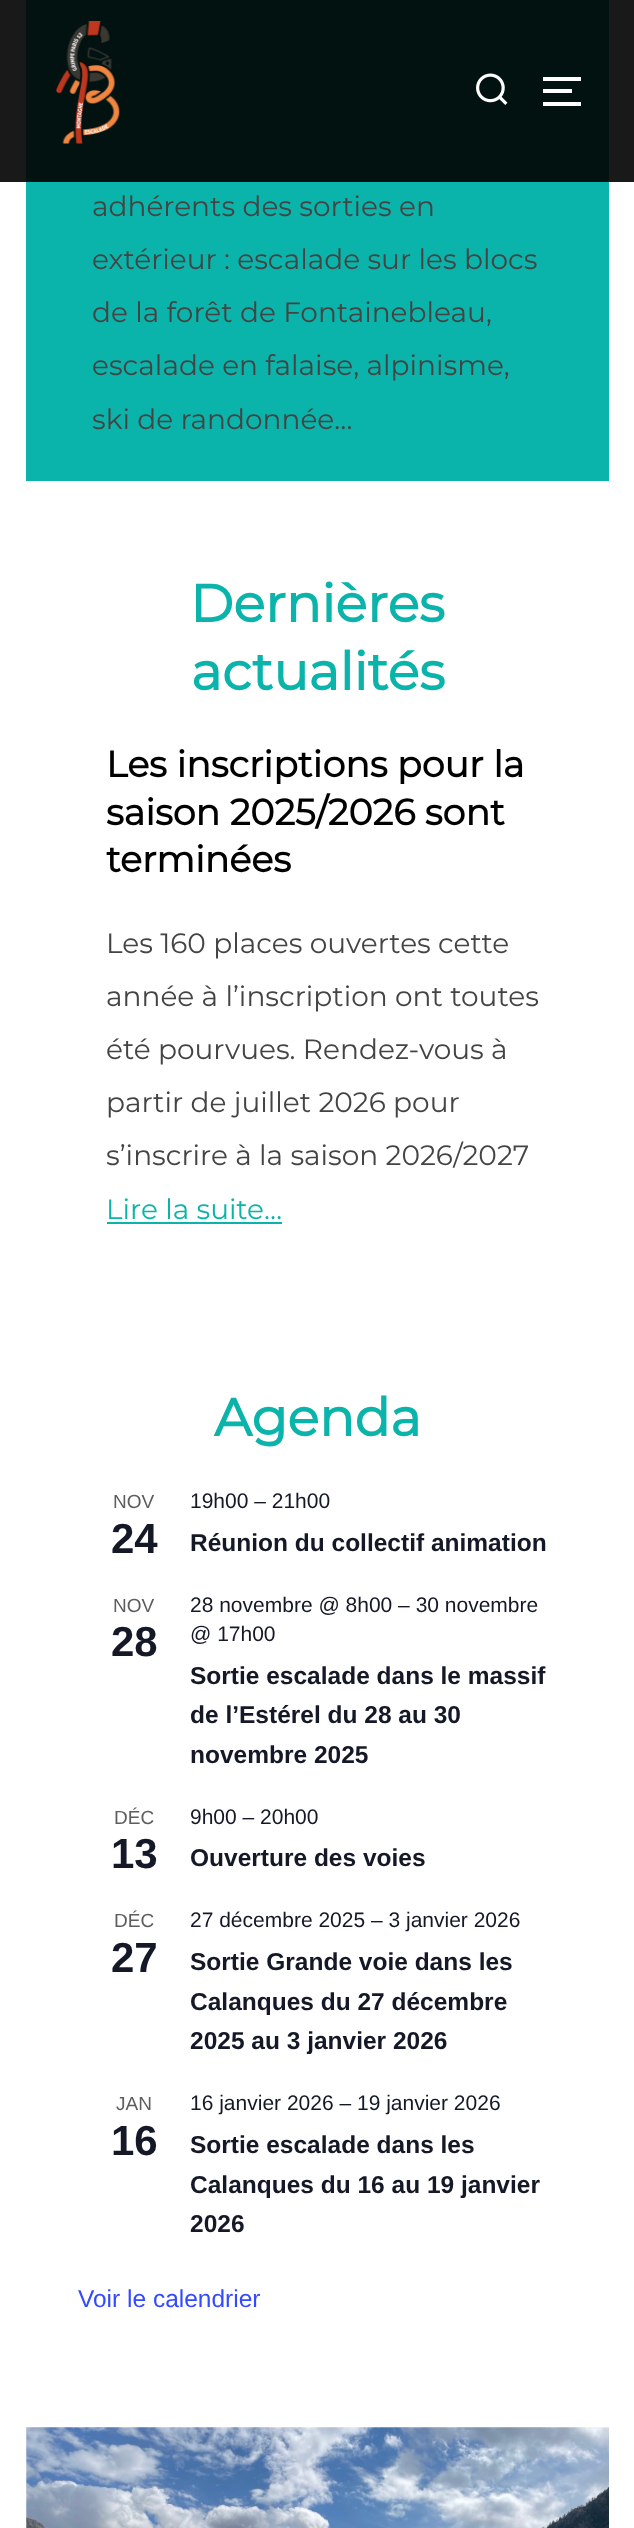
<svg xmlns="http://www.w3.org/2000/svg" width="634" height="2528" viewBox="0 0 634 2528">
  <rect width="100%" height="100%" fill="#ffffff"/>
  <rect x="0" y="0" width="634" height="182" fill="#191919"/>
  <rect x="26" y="0" width="583" height="182" fill="#011211"/>
  <image x="55" y="21" width="65" height="123" href="img1.png"/>
  <image x="476" y="73" width="32" height="32" href="img2.png"/>
  <rect x="543" y="77" width="38" height="4" fill="#ffffff"/>
  <rect x="543" y="89" width="29" height="4" fill="#ffffff"/>
  <rect x="543" y="102" width="38" height="4" fill="#ffffff"/>
  <rect x="26" y="182" width="583" height="299" fill="#0bb4aa"/>
  <text x="92" y="216" font-family="Montserrat" font-size="28" font-weight="100" fill="#444444">adhérents des sorties en</text>
  <text x="92" y="269" font-family="Montserrat" font-size="28" font-weight="100" fill="#444444">extérieur : escalade sur les blocs</text>
  <text x="92" y="322" font-family="Montserrat" font-size="28" font-weight="100" fill="#444444">de la forêt de Fontainebleau,</text>
  <text x="92" y="375" font-family="Montserrat" font-size="28" font-weight="100" fill="#444444">escalade en falaise, alpinisme,</text>
  <text x="92" y="429" font-family="Montserrat" font-size="28" font-weight="100" fill="#444444">ski de randonnée…</text>
  <text x="190" y="622" font-family="Montserrat" font-size="52.5" font-weight="bold" fill="#0bb4aa">Dernières</text>
  <text x="191" y="690" font-family="Montserrat" font-size="52.5" font-weight="bold" fill="#0bb4aa">actualités</text>
  <text x="106" y="777" font-family="Montserrat" font-size="36.4" font-weight="bold" fill="#000000">Les inscriptions pour la</text>
  <text x="106" y="825" font-family="Montserrat" font-size="36.4" font-weight="bold" fill="#000000">saison 2025/2026 sont</text>
  <text x="106" y="872" font-family="Montserrat" font-size="36.4" font-weight="bold" fill="#000000">terminées</text>
  <text x="106" y="953" font-family="Montserrat" font-size="28" font-weight="100" fill="#444444">Les 160 places ouvertes cette</text>
  <text x="106" y="1006" font-family="Montserrat" font-size="28" font-weight="100" fill="#444444">année à l’inscription ont toutes</text>
  <text x="106" y="1059" font-family="Montserrat" font-size="28" font-weight="100" fill="#444444">été pourvues. Rendez-vous à</text>
  <text x="106" y="1112" font-family="Montserrat" font-size="28" font-weight="100" fill="#444444">partir de juillet 2026 pour</text>
  <text x="106" y="1165" font-family="Montserrat" font-size="28" font-weight="100" fill="#444444">s’inscrire à la saison 2026/2027</text>
  <text x="106" y="1219" font-family="Montserrat" font-size="28" font-weight="100" fill="#0bb4aa">Lire la suite…</text>
  <rect x="107" y="1222" width="175" height="2" fill="#0bb4aa"/>
  <text x="214" y="1436" font-family="Montserrat" font-size="52.5" font-weight="bold" fill="#0bb4aa">Agenda</text>
  <text x="113" y="1508" font-family="Liberation Sans" font-size="19" fill="#5d5d5d">NOV</text>
  <text x="111" y="1553" font-family="Liberation Sans" font-size="42" font-weight="bold" fill="#141827">24</text>
  <text x="190" y="1508" font-family="Liberation Sans" font-size="21" fill="#141827">19h00 – 21h00</text>
  <text x="190" y="1551" font-family="Liberation Sans" font-size="24.5" font-weight="bold" fill="#141827">Réunion du collectif animation</text>
  <text x="113" y="1612" font-family="Liberation Sans" font-size="19" fill="#5d5d5d">NOV</text>
  <text x="111" y="1656" font-family="Liberation Sans" font-size="42" font-weight="bold" fill="#141827">28</text>
  <text x="190" y="1612" font-family="Liberation Sans" font-size="21" fill="#141827">28 novembre @ 8h00 – 30 novembre</text>
  <text x="190" y="1641" font-family="Liberation Sans" font-size="21" fill="#141827">@ 17h00</text>
  <text x="190" y="1684" font-family="Liberation Sans" font-size="24.5" font-weight="bold" fill="#141827">Sortie escalade dans le massif</text>
  <text x="190" y="1723" font-family="Liberation Sans" font-size="24.5" font-weight="bold" fill="#141827">de l’Estérel du 28 au 30</text>
  <text x="190" y="1763" font-family="Liberation Sans" font-size="24.5" font-weight="bold" fill="#141827">novembre 2025</text>
  <text x="114" y="1824" font-family="Liberation Sans" font-size="19" fill="#5d5d5d">DÉC</text>
  <text x="111" y="1868" font-family="Liberation Sans" font-size="42" font-weight="bold" fill="#141827">13</text>
  <text x="190" y="1824" font-family="Liberation Sans" font-size="21" fill="#141827">9h00 – 20h00</text>
  <text x="190" y="1866" font-family="Liberation Sans" font-size="24.5" font-weight="bold" fill="#141827">Ouverture des voies</text>
  <text x="114" y="1927" font-family="Liberation Sans" font-size="19" fill="#5d5d5d">DÉC</text>
  <text x="111" y="1972" font-family="Liberation Sans" font-size="42" font-weight="bold" fill="#141827">27</text>
  <text x="190" y="1927" font-family="Liberation Sans" font-size="21" fill="#141827">27 décembre 2025 – 3 janvier 2026</text>
  <text x="190" y="1970" font-family="Liberation Sans" font-size="24.5" font-weight="bold" fill="#141827">Sortie Grande voie dans les</text>
  <text x="190" y="2010" font-family="Liberation Sans" font-size="24.5" font-weight="bold" fill="#141827">Calanques du 27 décembre</text>
  <text x="190" y="2049" font-family="Liberation Sans" font-size="24.5" font-weight="bold" fill="#141827">2025 au 3 janvier 2026</text>
  <text x="116" y="2110" font-family="Liberation Sans" font-size="19" fill="#5d5d5d">JAN</text>
  <text x="111" y="2155" font-family="Liberation Sans" font-size="42" font-weight="bold" fill="#141827">16</text>
  <text x="190" y="2110" font-family="Liberation Sans" font-size="21" fill="#141827">16 janvier 2026 – 19 janvier 2026</text>
  <text x="190" y="2153" font-family="Liberation Sans" font-size="24.5" font-weight="bold" fill="#141827">Sortie escalade dans les</text>
  <text x="190" y="2193" font-family="Liberation Sans" font-size="24.5" font-weight="bold" fill="#141827">Calanques du 16 au 19 janvier</text>
  <text x="190" y="2232" font-family="Liberation Sans" font-size="24.5" font-weight="bold" fill="#141827">2026</text>
  <text x="78" y="2307" font-family="Liberation Sans" font-size="24.5" fill="#334aff">Voir le calendrier</text>
  <image x="26" y="2427" width="583" height="101" href="img3.png"/>
</svg>
